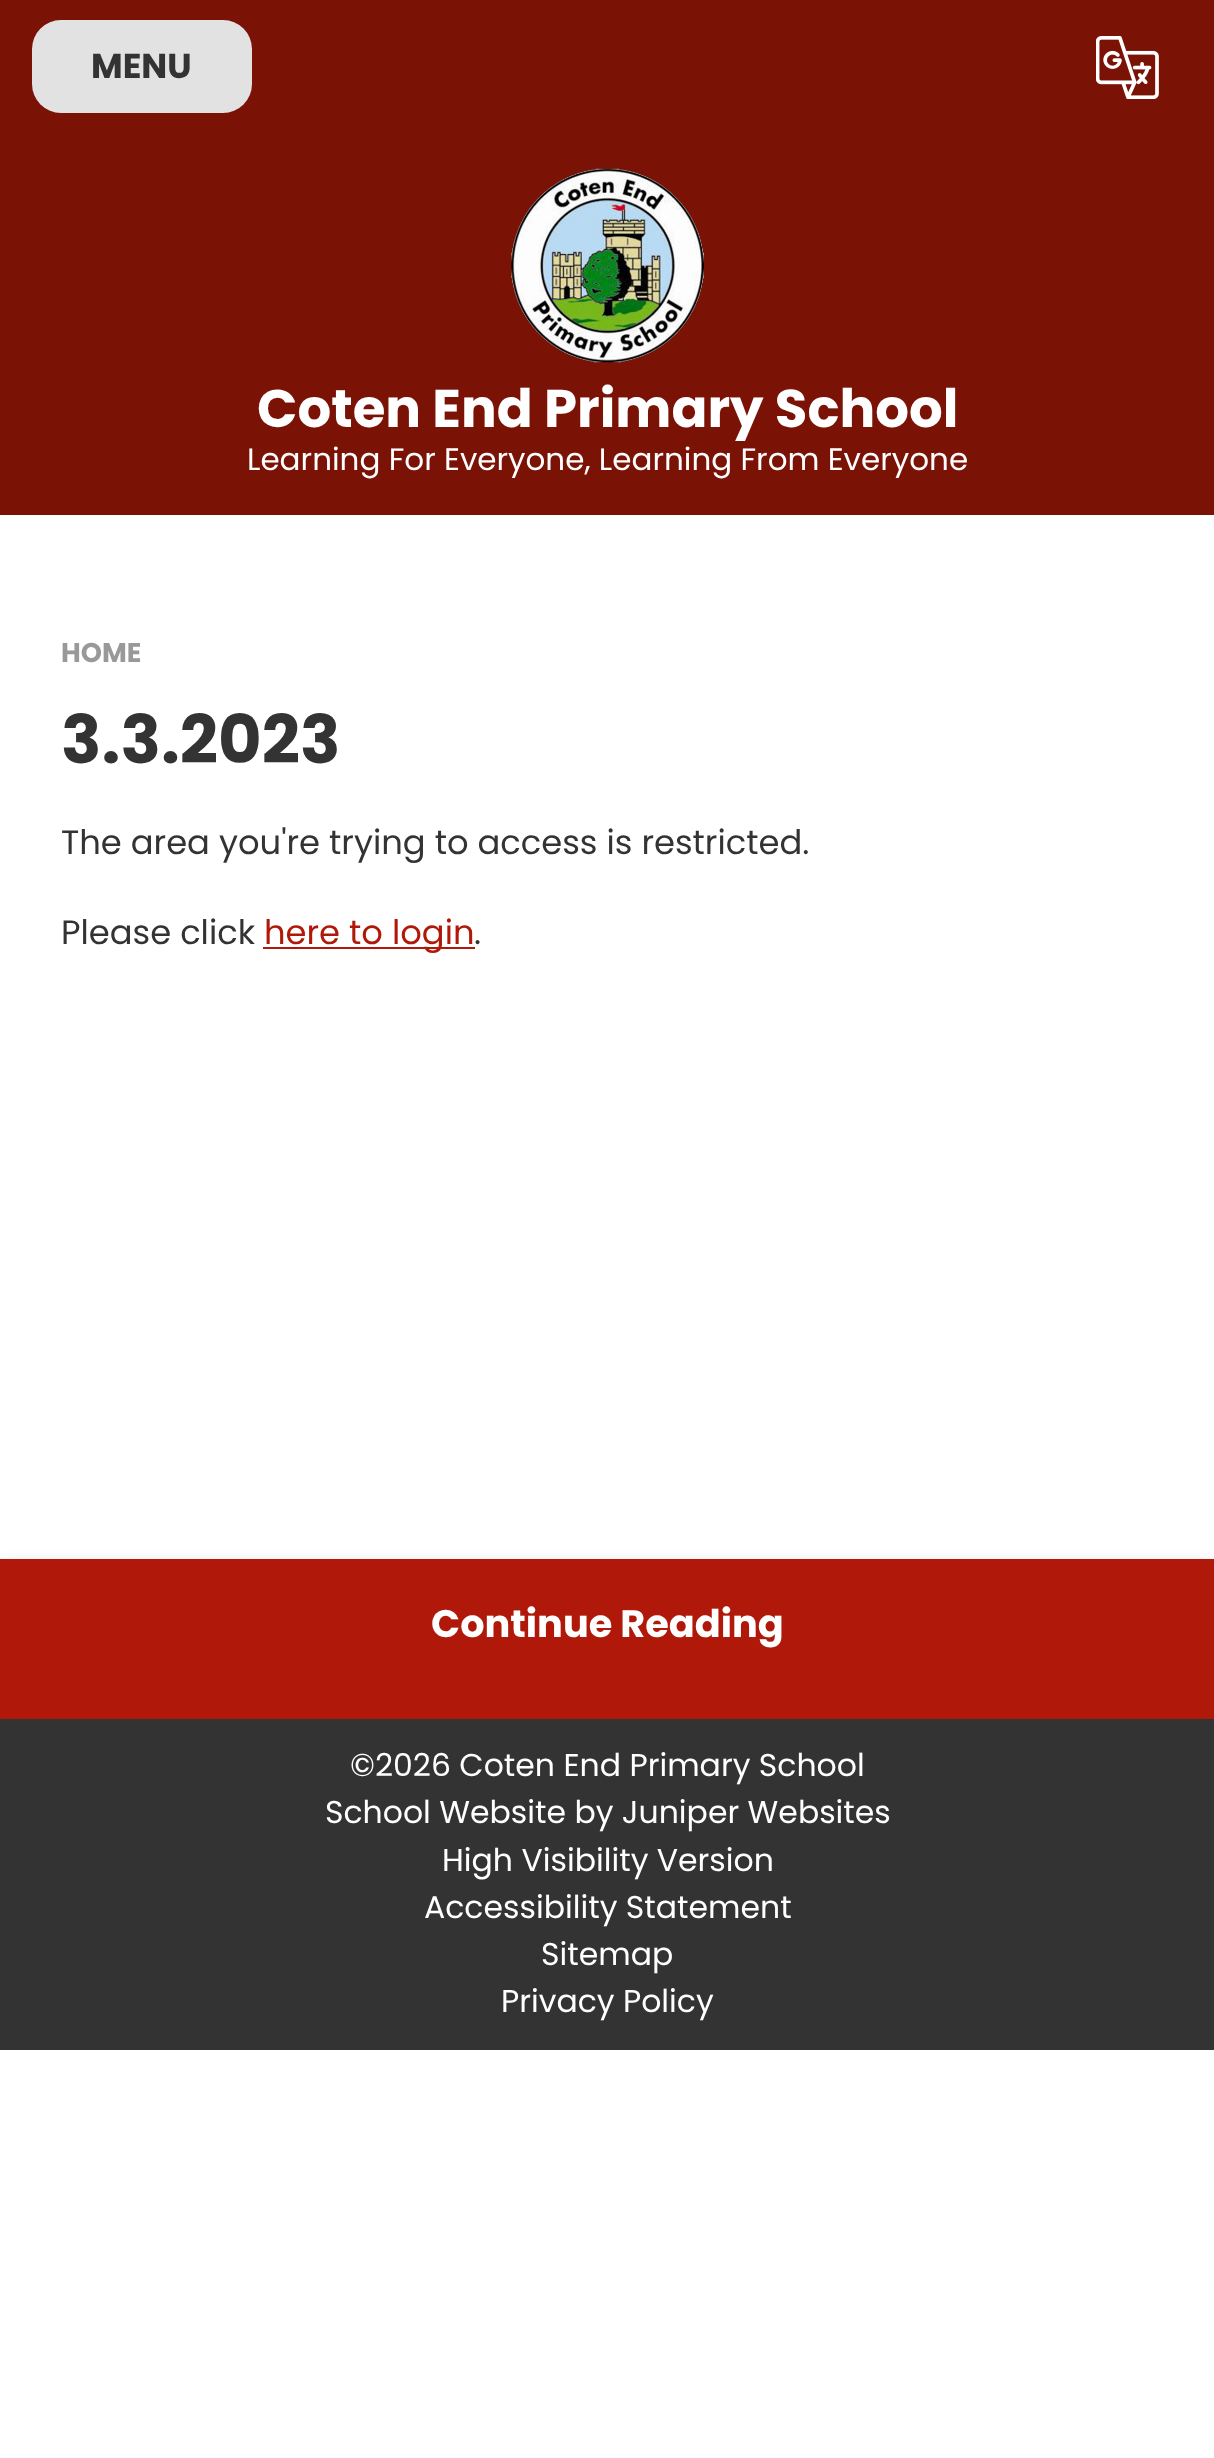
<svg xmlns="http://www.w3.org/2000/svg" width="1214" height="2458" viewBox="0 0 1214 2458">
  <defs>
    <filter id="blur1" x="-50%" y="-200%" width="200%" height="500%"><feGaussianBlur stdDeviation="9"/></filter>
  </defs>
  <rect width="100%" height="100%" fill="#ffffff"/>
  <rect x="0" y="0" width="1214" height="515" fill="#7b1206"/>
  <rect x="32" y="20" width="220" height="93" rx="29" fill="#e2e2e2"/>
  <text x="91" y="78" font-family="Poppins" font-size="34.5" font-weight="bold" fill="#333333">MENU</text>
  <image x="1096" y="36" width="63" height="63" href="img1.png"/>
  <image x="511" y="168" width="193" height="195" href="img2.png"/>
  <text x="257" y="427" font-family="Poppins" font-size="53" font-weight="bold" fill="#ffffff">Coten End Primary School</text>
  <text x="247" y="470" font-family="Poppins" font-size="31" fill="#ffffff">Learning For Everyone, Learning From Everyone</text>
  <text x="61" y="662" font-family="Poppins" font-size="27" font-weight="bold" fill="#999999">HOME</text>
  <text x="61" y="763" font-family="Poppins" font-size="67" font-weight="bold" fill="#333333">3.3.2023</text>
  <text x="61" y="854" font-family="Poppins" font-size="33.75" fill="#333333">The area you're trying to access is restricted.</text>
  <text x="61" y="944" font-family="Poppins" font-size="33.75" fill="#333333">Please click</text>
  <rect x="263" y="947" width="212" height="2" fill="#b01909"/>
  <text x="264" y="944" font-family="Poppins" font-size="33.75" fill="#b01909">here to login</text>
  <text x="474" y="944" font-family="Poppins" font-size="33.75" fill="#333333">.</text>
  <rect x="0" y="1568" width="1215" height="160" fill="#333333" fill-opacity="0.2" filter="url(#blur1)"/>
  <rect x="0" y="1559" width="1214" height="160" fill="#b01909"/>
  <text x="431" y="1637" font-family="Poppins" font-size="38.25" font-weight="bold" fill="#ffffff">Continue Reading</text>
  <rect x="0" y="1719" width="1214" height="331" fill="#333333"/>
  <text x="350" y="1776" font-family="Poppins" font-size="31.5" fill="#ffffff">©2026 Coten End Primary School</text>
  <text x="325" y="1823" font-family="Poppins" font-size="31.5" fill="#ffffff">School Website by Juniper Websites</text>
  <text x="442" y="1871" font-family="Poppins" font-size="31.5" fill="#ffffff">High Visibility Version</text>
  <text x="424" y="1918" font-family="Poppins" font-size="31.5" fill="#ffffff">Accessibility Statement</text>
  <text x="541" y="1965" font-family="Poppins" font-size="31.5" fill="#ffffff">Sitemap</text>
  <text x="501" y="2012" font-family="Poppins" font-size="31.5" fill="#ffffff">Privacy Policy</text>
</svg>
